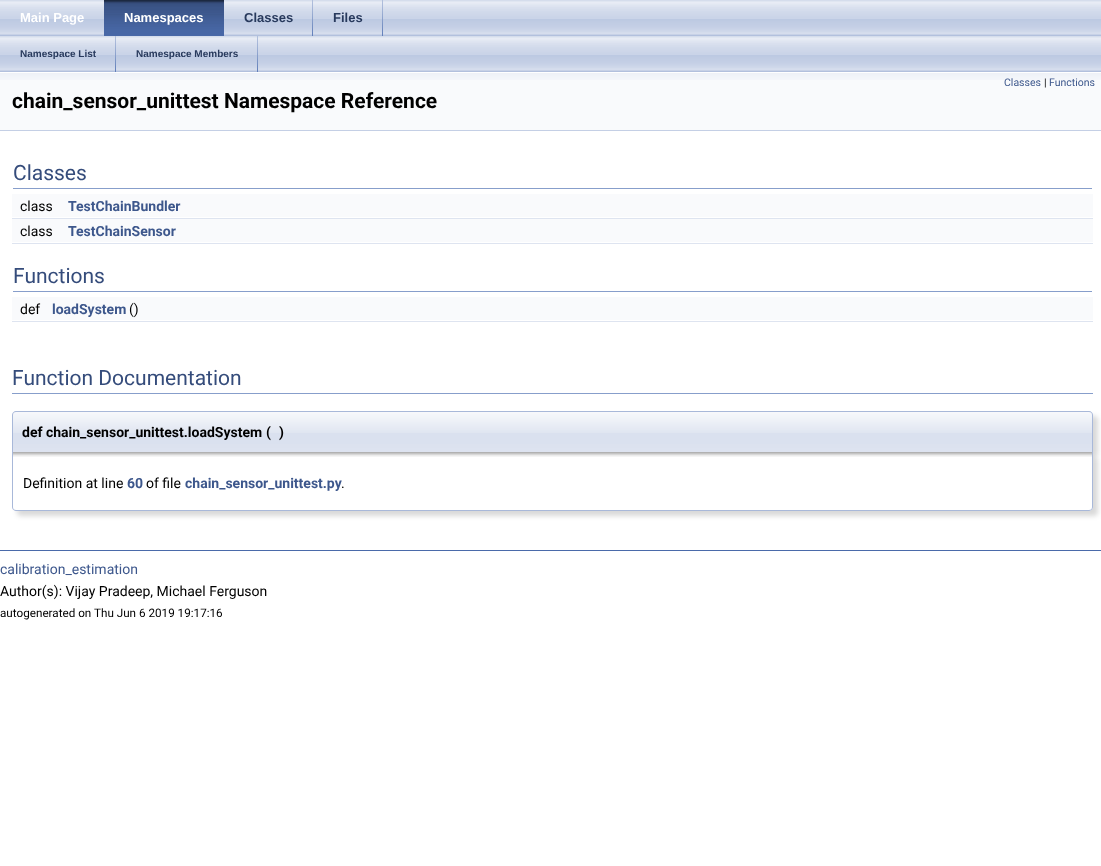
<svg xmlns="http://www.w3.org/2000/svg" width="1101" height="866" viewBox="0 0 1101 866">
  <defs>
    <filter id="blur1" x="-50%" y="-200%" width="200%" height="500%"><feGaussianBlur stdDeviation="2.5"/></filter>
  </defs>
  <rect width="100%" height="100%" fill="#ffffff"/>
  <image x="0" y="0" width="1101" height="36" href="img1.png"/>
  <text x="20" y="22" font-family="Liberation Sans" font-size="13" font-weight="bold" fill="#ffffff">Main Page</text>
  <image x="104" y="0" width="120" height="36" href="img2.png"/>
  <text x="124" y="22" font-family="Liberation Sans" font-size="13" font-weight="bold" fill="#ffffff">Namespaces</text>
  <image x="312" y="0" width="1" height="36" href="img3.png"/>
  <text x="244" y="22" font-family="Liberation Sans" font-size="13" font-weight="bold" fill="#283a5d">Classes</text>
  <image x="382" y="0" width="1" height="36" href="img3.png"/>
  <text x="333" y="22" font-family="Liberation Sans" font-size="13" font-weight="bold" fill="#283a5d">Files</text>
  <image x="0" y="36" width="1101" height="36" href="img1.png"/>
  <image x="115" y="36" width="1" height="36" href="img3.png"/>
  <text x="20" y="57" font-family="Liberation Sans" font-size="10" font-weight="bold" fill="#283a5d">Namespace List</text>
  <image x="257" y="36" width="1" height="36" href="img3.png"/>
  <text x="136" y="57" font-family="Liberation Sans" font-size="10" font-weight="bold" fill="#283a5d">Namespace Members</text>
  <rect x="0" y="80" width="1101" height="50" fill="#f9fafc"/>
  <image x="0" y="72" width="1101" height="8" href="img4.png"/>
  <rect x="0" y="130" width="1101" height="1" fill="#c4cfe5"/>
  <text x="1004" y="86" font-family="Roboto" font-size="10.5" fill="#3d578c">Classes</text>
  <text x="1044" y="86" font-family="Roboto" font-size="10.5" fill="#000000">|</text>
  <text x="1049" y="86" font-family="Roboto" font-size="10.5" fill="#3d578c">Functions</text>
  <text x="12" y="108" font-family="Roboto" font-size="21" font-weight="bold" fill="#000000">chain_sensor_unittest Namespace Reference</text>
  <rect x="13" y="188" width="1079" height="1" fill="#879ecb"/>
  <text x="13" y="180" font-family="Roboto" font-size="21" fill="#354c7b">Classes</text>
  <rect x="12" y="194" width="1081" height="23" fill="#f9fafc"/>
  <text x="20" y="211" font-family="Roboto" font-size="14" fill="#000000">class</text>
  <text x="68" y="211" font-family="Roboto" font-size="14" font-weight="bold" fill="#3d578c">TestChainBundler</text>
  <rect x="12" y="218" width="1081" height="1" fill="#dee4f0"/>
  <rect x="12" y="219" width="1081" height="23" fill="#f9fafc"/>
  <text x="20" y="236" font-family="Roboto" font-size="14" fill="#000000">class</text>
  <text x="68" y="236" font-family="Roboto" font-size="14" font-weight="bold" fill="#3d578c">TestChainSensor</text>
  <rect x="12" y="243" width="1081" height="1" fill="#dee4f0"/>
  <rect x="13" y="291" width="1079" height="1" fill="#879ecb"/>
  <text x="13" y="283" font-family="Roboto" font-size="21" fill="#354c7b">Functions</text>
  <rect x="12" y="297" width="1081" height="23" fill="#f9fafc"/>
  <text x="20" y="314" font-family="Roboto" font-size="14" fill="#000000">def</text>
  <text x="52" y="314" font-family="Roboto" font-size="14" font-weight="bold" fill="#3d578c">loadSystem</text>
  <text x="129" y="314" font-family="Roboto" font-size="14" fill="#000000">()</text>
  <rect x="12" y="321" width="1081" height="1" fill="#dee4f0"/>
  <rect x="12" y="393" width="1081" height="1" fill="#879ecb"/>
  <text x="12" y="385" font-family="Roboto" font-size="21" fill="#354c7b">Function Documentation</text>
  <rect x="17" y="416" width="1081" height="41" rx="4" fill="#000000" fill-opacity="0.15" filter="url(#blur1)"/>
  <image x="12" y="412" width="1081" height="40" href="img5.png"/>
  <path d="M16 411H1089C1091 411 1093 413 1093 415V452H12V415C12 413 14 411 16 411ZM16 412H1089C1091 412 1092 413 1092 415V452H13V415C13 413 14 412 16 412Z" fill="#a8b8d9" fill-rule="evenodd"/>
  <text x="22" y="437" font-family="Roboto" font-size="14" font-weight="bold" fill="#000000">def chain_sensor_unittest.loadSystem</text>
  <text x="266" y="437" font-family="Roboto" font-size="14" font-weight="bold" fill="#000000">(</text>
  <text x="279" y="437" font-family="Roboto" font-size="14" font-weight="bold" fill="#000000">)</text>
  <rect x="17" y="457" width="1081" height="59" rx="4" fill="#000000" fill-opacity="0.15" filter="url(#blur1)"/>
  <path d="M12 452H1093V507C1093 509 1091 511 1089 511H16C14 511 12 509 12 507Z" fill="#ffffff"/>
  <image x="13" y="452" width="1079" height="5" href="img6.png"/>
  <path d="M12 452H1093V507C1093 509 1091 511 1089 511H16C14 511 12 509 12 507ZM13 452H1092V507C1092 509 1091 510 1089 510H16C14 510 13 509 13 507Z" fill="#a8b8d9" fill-rule="evenodd"/>
  <text x="23" y="488" font-family="Roboto" font-size="14" fill="#000000">Definition at line</text>
  <text x="127" y="488" font-family="Roboto" font-size="14" font-weight="bold" fill="#3d578c">60</text>
  <text x="146" y="488" font-family="Roboto" font-size="14" fill="#000000">of file</text>
  <text x="185" y="488" font-family="Roboto" font-size="14" font-weight="bold" fill="#3d578c">chain_sensor_unittest.py</text>
  <text x="341" y="488" font-family="Roboto" font-size="14" fill="#000000">.</text>
  <rect x="0" y="550" width="1101" height="1" fill="#4a6aaa"/>
  <text x="0" y="574" font-family="Roboto" font-size="14" fill="#3d578c">calibration_estimation</text>
  <text x="0" y="596" font-family="Roboto" font-size="14" fill="#000000">Author(s): Vijay Pradeep, Michael Ferguson</text>
  <text x="0" y="617" font-family="Roboto" font-size="11.7" fill="#000000">autogenerated on Thu Jun 6 2019 19:17:16</text>
</svg>
